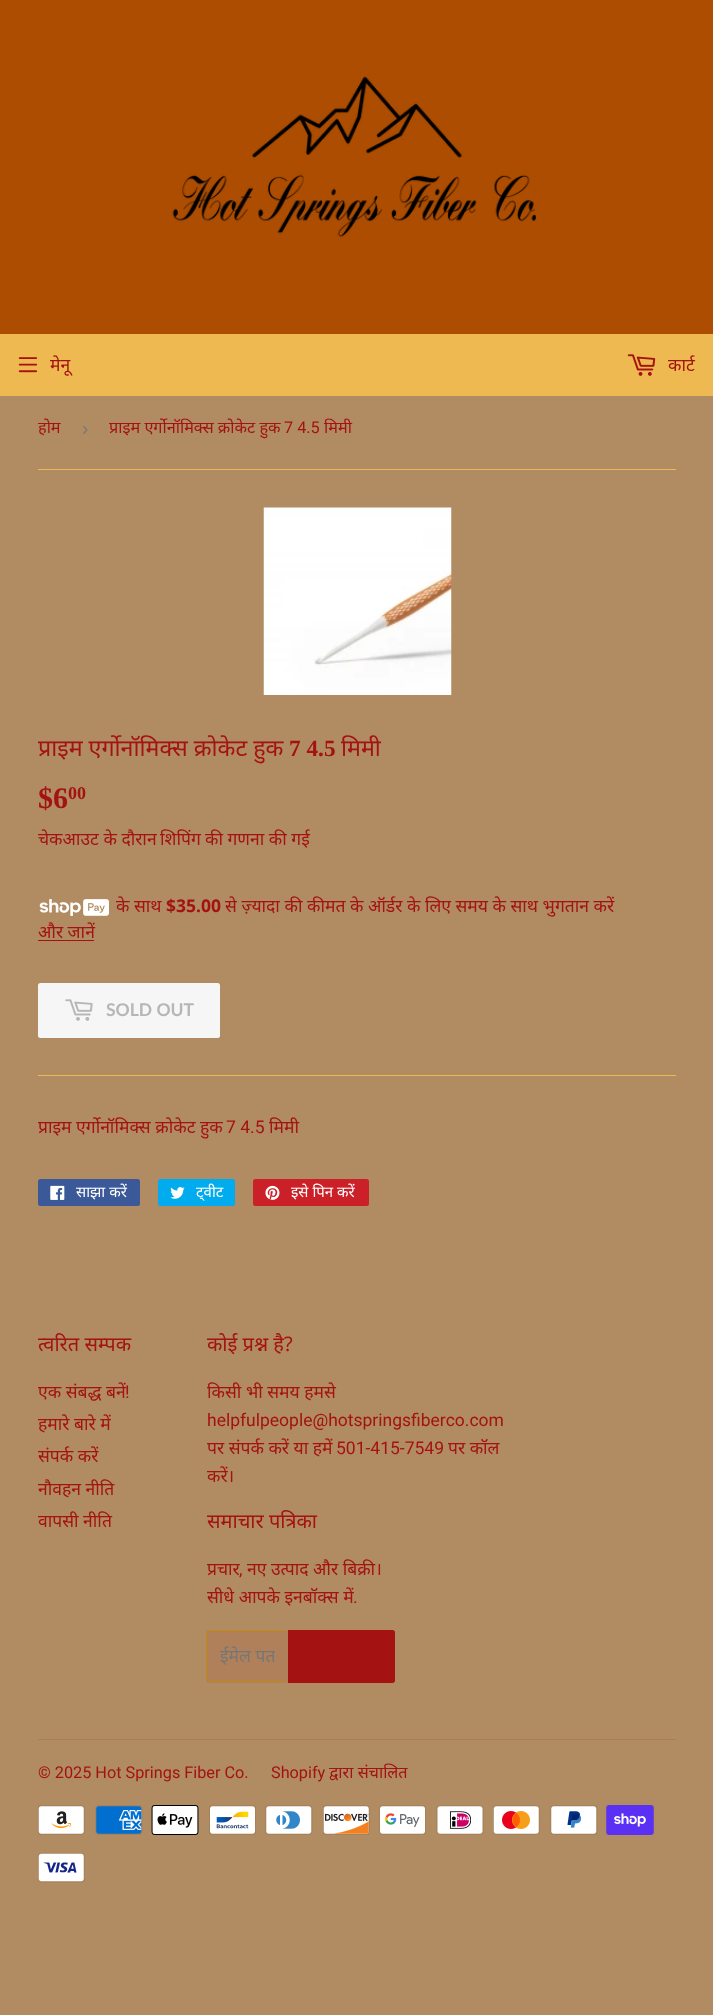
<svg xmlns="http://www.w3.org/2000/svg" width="713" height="2015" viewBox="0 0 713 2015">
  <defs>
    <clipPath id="clip1"><rect x="38" y="396" width="31" height="64"/></clipPath>
    <clipPath id="clip2"><rect x="220" y="1644" width="55" height="24"/></clipPath>
  </defs>
  <rect width="100%" height="100%" fill="#b18c62"/>
  <rect x="0" y="0" width="713" height="334" fill="#ac4d01"/>
  <image x="172" y="76" width="365" height="162" href="img1.png"/>
  <rect x="0" y="334" width="713" height="62" fill="#eeb950"/>
  <image x="18" y="357" width="20" height="16" href="img2.png"/>
  <text x="50" y="371" font-family="Noto Sans" font-size="17.5" fill="#a41212">मेनू</text>
  <image x="627" y="354" width="29" height="22" href="img3.png"/>
  <text x="668" y="371" font-family="Noto Sans" font-size="17.5" fill="#a41212">कार्ट</text>
  <rect x="38" y="469" width="638" height="1" fill="#eeb950"/>
  <g clip-path="url(#clip1)">
    <text x="38" y="433" font-family="Noto Sans" font-size="16.25" fill="#a41212">होम</text>
  </g>
  <text x="82" y="435" font-family="Liberation Sans" font-size="19" fill="#767676">›</text>
  <text x="109" y="433" font-family="Noto Sans" font-size="16.25" fill="#a41212">प्राइम एर्गोनॉमिक्स क्रोकेट हुक</text>
  <text x="284" y="433" font-family="Roboto" font-size="16.25" fill="#a41212">7 4.5</text>
  <text x="324" y="433" font-family="Noto Sans" font-size="16.25" fill="#a41212">मिमी</text>
  <image x="263" y="507" width="189" height="188" href="img4.png"/>
  <text x="38" y="756" font-family="Noto Sans" font-size="23.25" fill="#a41212">प्राइम एर्गोनॉमिक्स क्रोकेट हुक</text>
  <text x="289" y="756" font-family="Liberation Serif" font-size="23.25" font-weight="bold" fill="#a41212">7 4.5</text>
  <text x="341" y="756" font-family="Noto Sans" font-size="23.25" fill="#a41212">मिमी</text>
  <text x="38" y="808" font-family="Liberation Serif" font-size="30" font-weight="bold" fill="#a41212">$6</text>
  <text x="68" y="799" font-family="Liberation Serif" font-size="18" font-weight="bold" fill="#a41212">00</text>
  <text x="38" y="845" font-family="Noto Sans" font-size="17.5" fill="#a41212">चेकआउट के दौरान</text>
  <text x="160" y="845" font-family="Noto Sans" font-size="17.5" fill="#a41212">शिपिंग</text>
  <text x="205" y="845" font-family="Noto Sans" font-size="17.5" fill="#a41212">की गणना की गई</text>
  <text x="116" y="912" font-family="Noto Sans" font-size="17.5" fill="#a41212">के साथ</text>
  <image x="39" y="899" width="70" height="17" href="img5.png"/>
  <text x="166" y="912" font-family="Noto Sans" font-size="17.5" font-weight="bold" fill="#a41212">$35.00</text>
  <text x="225" y="912" font-family="Noto Sans" font-size="17.5" fill="#a41212">से ज़्यादा की कीमत के ऑर्डर के लिए समय के साथ भुगतान करें</text>
  <text x="38" y="938" font-family="Noto Sans" font-size="17.5" fill="#a41212">और जानें</text>
  <rect x="38" y="940" width="56" height="1" fill="#a41212"/>
  <rect x="38" y="983" width="182" height="55" rx="2.5" fill="#f6f6f6"/>
  <image x="65" y="999" width="28" height="22" href="img6.png"/>
  <text x="106" y="1016" font-family="Lato" font-size="17.5" font-weight="bold" fill="#b6b6b6">SOLD OUT</text>
  <rect x="38" y="1075" width="638" height="1" fill="#eeb950"/>
  <text x="38" y="1133" font-family="Noto Sans" font-size="17.5" fill="#a41212">प्राइम एर्गोनॉमिक्स क्रोकेट हुक</text>
  <text x="226" y="1133" font-family="Roboto" font-size="17.5" fill="#a41212">7 4.5</text>
  <text x="269" y="1133" font-family="Noto Sans" font-size="17.5" fill="#a41212">मिमी</text>
  <rect x="38" y="1179" width="102" height="27" rx="2.5" fill="#3b5998"/>
  <image x="50" y="1185" width="15" height="15" href="img7.png"/>
  <text x="76" y="1197" font-family="Noto Sans" font-size="15" fill="#ffffff">साझा करें</text>
  <rect x="158" y="1179" width="77" height="27" rx="2.5" fill="#00aced"/>
  <image x="170" y="1187" width="15" height="12" href="img8.png"/>
  <text x="196" y="1197" font-family="Noto Sans" font-size="15" fill="#ffffff">ट्वीट</text>
  <rect x="253" y="1179" width="116" height="27" rx="2.5" fill="#cb2027"/>
  <image x="265" y="1185" width="15" height="15" href="img9.png"/>
  <text x="291" y="1197" font-family="Noto Sans" font-size="15" fill="#ffffff">इसे पिन करें</text>
  <text x="38" y="1351" font-family="Noto Sans" font-size="20" fill="#a41212">त्वरित सम्पक</text>
  <text x="38" y="1398" font-family="Noto Sans" font-size="17.5" fill="#a41212">एक संबद्ध बनें</text>
  <text x="125" y="1398" font-family="Roboto" font-size="17.5" fill="#a41212">!</text>
  <text x="38" y="1430" font-family="Noto Sans" font-size="17.5" fill="#a41212">हमारे बारे में</text>
  <text x="38" y="1462" font-family="Noto Sans" font-size="17.5" fill="#a41212">संपर्क करें</text>
  <text x="38" y="1495" font-family="Noto Sans" font-size="17.5" fill="#a41212">नौवहन नीति</text>
  <text x="38" y="1527" font-family="Noto Sans" font-size="17.5" fill="#a41212">वापसी नीति</text>
  <text x="207" y="1351" font-family="Noto Sans" font-size="20" fill="#a41212">कोई प्रश्न है?</text>
  <text x="207" y="1398" font-family="Noto Sans" font-size="17.5" fill="#a41212">किसी भी समय हमसे</text>
  <text x="207" y="1426" font-family="Roboto" font-size="17.5" fill="#a41212">helpfulpeople@hotspringsfiberco.com</text>
  <text x="207" y="1454" font-family="Noto Sans" font-size="17.5" fill="#a41212">पर संपर्क करें या हमें</text>
  <text x="336" y="1454" font-family="Roboto" font-size="17.5" fill="#a41212">501-415-7549</text>
  <text x="448" y="1454" font-family="Noto Sans" font-size="17.5" fill="#a41212">पर कॉल</text>
  <text x="207" y="1482" font-family="Noto Sans" font-size="17.5" fill="#a41212">करें।</text>
  <text x="207" y="1528" font-family="Noto Sans" font-size="20" fill="#a41212">समाचार पत्रिका</text>
  <text x="207" y="1575" font-family="Noto Sans" font-size="17.5" fill="#a41212">प्रचार</text>
  <text x="239" y="1575" font-family="Roboto" font-size="17.5" fill="#a41212">,</text>
  <text x="247" y="1575" font-family="Noto Sans" font-size="17.5" fill="#a41212">नए उत्पाद और बिक्री।</text>
  <text x="207" y="1603" font-family="Noto Sans" font-size="17.5" fill="#a41212">सीधे आपके इनबॉक्स में</text>
  <text x="353" y="1603" font-family="Roboto" font-size="17.5" fill="#a41212">.</text>
  <rect x="206" y="1630" width="82" height="53" rx="2.5" fill="#b0805a"/>
  <rect x="208" y="1630" width="78" height="1" fill="#c58913"/>
  <rect x="208" y="1681" width="78" height="1" fill="#c58913"/>
  <rect x="206" y="1631" width="1" height="50" fill="#c58913"/>
  <g clip-path="url(#clip2)">
    <text x="220" y="1662" font-family="Noto Sans" font-size="17.5" fill="#767676">ईमेल पता</text>
  </g>
  <path d="M288 1630H392.5C394 1630 395 1631 395 1632.5V1680.5C395 1682 394 1683 392.5 1683H288Z" fill="#a41212"/>
  <rect x="38" y="1739" width="638" height="1" fill="#a77f53"/>
  <text x="38" y="1778" font-family="Roboto" font-size="16.25" fill="#a41212">© 2025 Hot Springs Fiber Co.</text>
  <text x="271" y="1778" font-family="Roboto" font-size="16.25" fill="#a41212">Shopify</text>
  <text x="329" y="1778" font-family="Noto Sans" font-size="16.25" fill="#a41212">द्वारा संचालित</text>
  <image x="38" y="1805" width="47" height="30" href="img10.png"/>
  <image x="95" y="1805" width="48" height="30" href="img11.png"/>
  <image x="151" y="1805" width="48" height="30" href="img12.png"/>
  <image x="209" y="1805" width="47" height="30" href="img13.png"/>
  <image x="265" y="1805" width="48" height="30" href="img14.png"/>
  <image x="323" y="1805" width="47" height="30" href="img15.png"/>
  <image x="379" y="1805" width="47" height="30" href="img16.png"/>
  <image x="436" y="1805" width="48" height="30" href="img17.png"/>
  <image x="493" y="1805" width="47" height="30" href="img18.png"/>
  <image x="550" y="1805" width="48" height="30" href="img19.png"/>
  <image x="606" y="1805" width="48" height="30" href="img20.png"/>
  <image x="38" y="1853" width="47" height="30" href="img21.png"/>
</svg>
